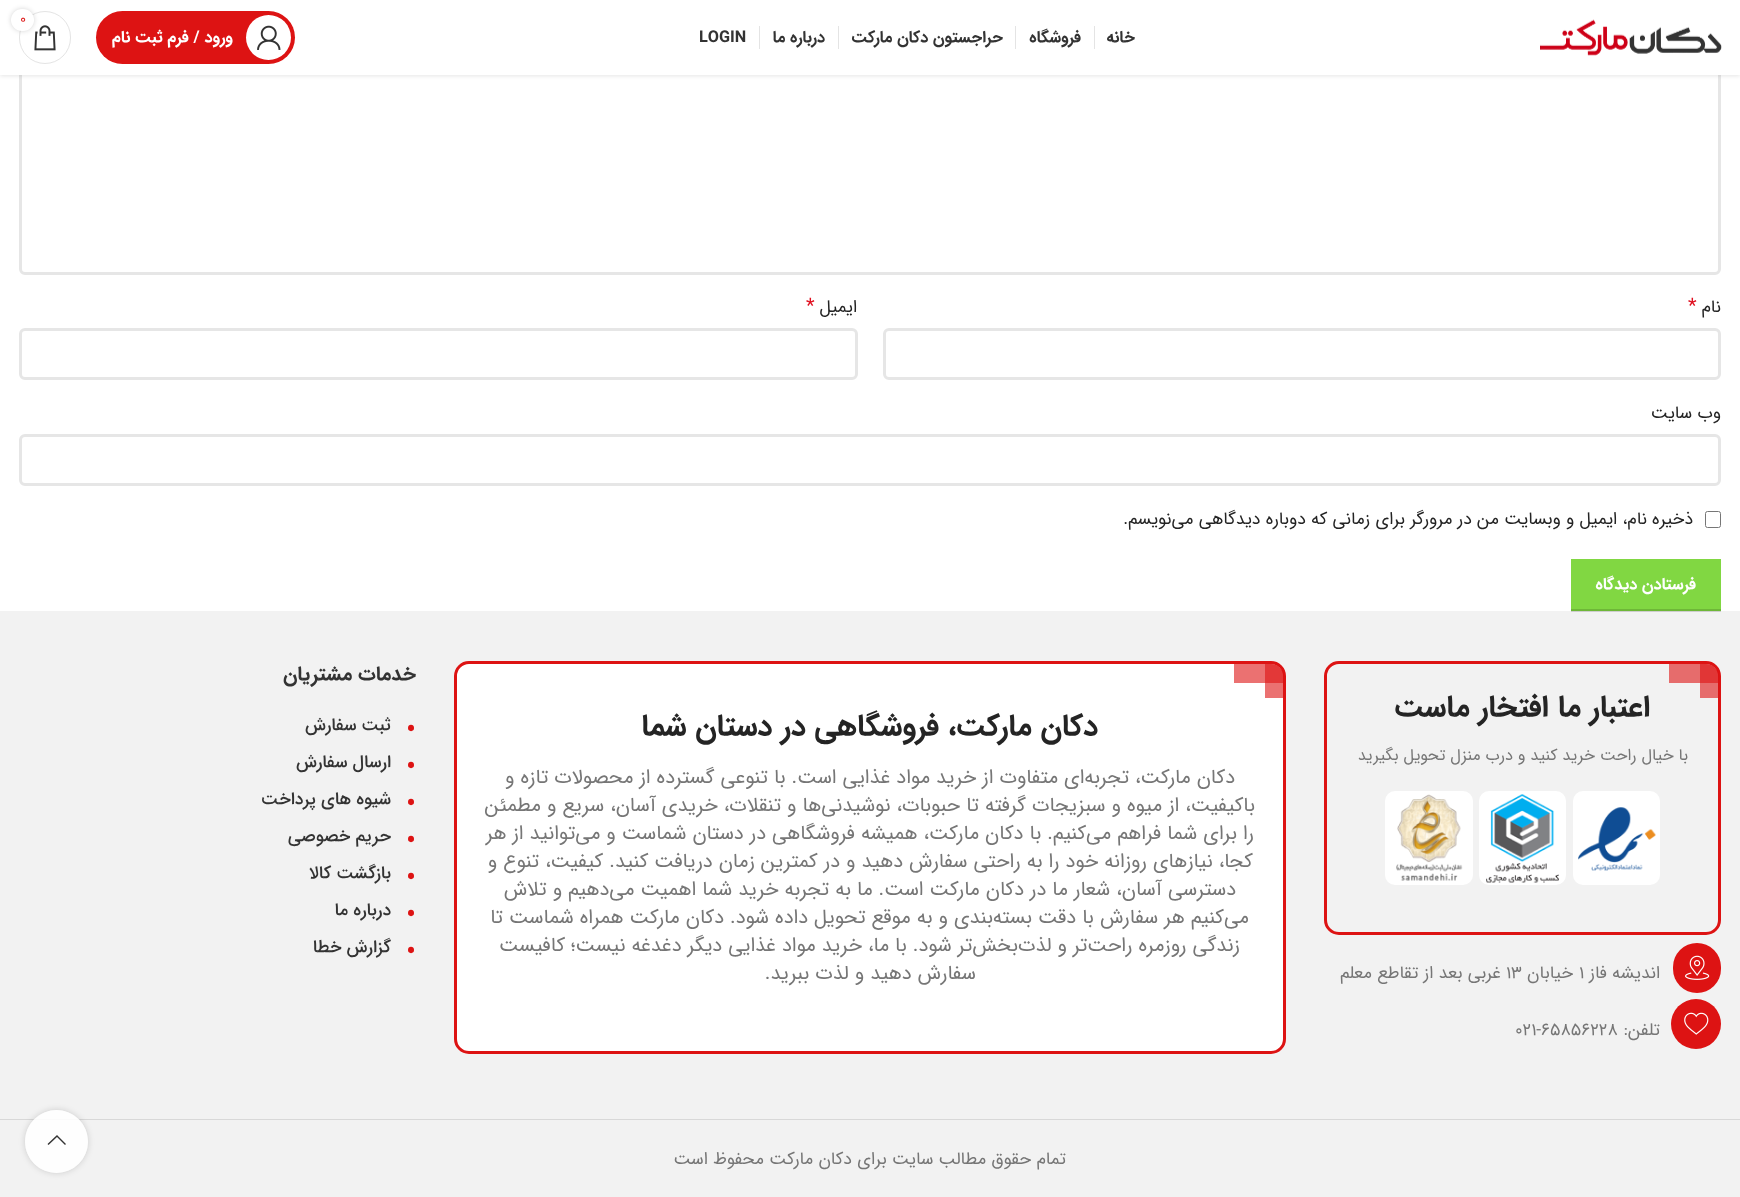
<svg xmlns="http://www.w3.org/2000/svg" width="1740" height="1197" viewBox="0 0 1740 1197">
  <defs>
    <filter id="blur1" x="-50%" y="-200%" width="200%" height="500%"><feGaussianBlur stdDeviation="2"/></filter>
    <filter id="blur2" x="-50%" y="-200%" width="200%" height="500%"><feGaussianBlur stdDeviation="2.5"/></filter>
    <clipPath id="clip1"><path d="M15 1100H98V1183H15ZM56.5 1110C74 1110 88 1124 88 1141.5C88 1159 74 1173 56.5 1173C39 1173 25 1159 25 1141.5C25 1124 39 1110 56.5 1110Z" clip-rule="evenodd"/></clipPath>
    <filter id="blur3" x="-50%" y="-200%" width="200%" height="500%"><feGaussianBlur stdDeviation="3"/></filter>
  </defs>
  <rect width="100%" height="100%" fill="#ffffff"/>
  <rect x="20.5" y="39.5" width="1699" height="234" rx="4.5" fill="none" stroke="#e6e6e6" stroke-width="3"/>
  <rect x="0" y="1" width="1740" height="75" fill="#000000" fill-opacity="0.1" filter="url(#blur1)"/>
  <rect x="0" y="0" width="1740" height="75" fill="#ffffff"/>
  <image x="1540" y="19" width="182" height="37" href="img1.png"/>
  <text x="1135" y="42" font-family="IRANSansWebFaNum" font-size="16.25" font-weight="bold" direction="rtl" fill="#333333">خانه</text>
  <rect x="1094" y="26" width="1" height="23" fill="#e4e4e4"/>
  <text x="1081" y="42" font-family="IRANSansWebFaNum" font-size="16.25" font-weight="bold" direction="rtl" fill="#333333">فروشگاه</text>
  <rect x="1015" y="26" width="1" height="23" fill="#e4e4e4"/>
  <text x="1003" y="42" font-family="IRANSansWebFaNum" font-size="16.25" font-weight="bold" direction="rtl" fill="#333333">حراجستون دکان مارکت</text>
  <rect x="838" y="26" width="1" height="23" fill="#e4e4e4"/>
  <text x="825" y="42" font-family="IRANSansWebFaNum" font-size="16.25" font-weight="bold" direction="rtl" fill="#333333">درباره ما</text>
  <rect x="759" y="26" width="1" height="23" fill="#e4e4e4"/>
  <text x="699" y="42" font-family="IRANSansWebFaNum" font-size="16.25" font-weight="bold" fill="#333333">LOGIN</text>
  <rect x="19.5" y="11.5" width="51" height="52" rx="25.5" fill="none" stroke="#e4e4e4"/>
  <image x="34" y="25" width="22" height="26" href="img2.png"/>
  <rect x="11" y="9" width="23" height="22" rx="11" fill="#000000" fill-opacity="0.17" filter="url(#blur2)"/>
  <rect x="11" y="9" width="23" height="22" rx="11" fill="#ffffff"/>
  <text x="20" y="23" font-family="IRANSansWebFaNum" font-size="14" fill="#dd1313">0</text>
  <rect x="96" y="11" width="199" height="53" rx="26.5" fill="#dd1313"/>
  <circle cx="268.5" cy="37.5" r="22.5" fill="#ffffff"/>
  <image x="257" y="25" width="24" height="25" href="img3.png"/>
  <text x="233" y="42" font-family="IRANSansWebFaNum" font-size="16.25" font-weight="bold" direction="rtl" fill="#ffffff">ورود / فرم ثبت نام</text>
  <text x="1721" y="312" font-family="IRANSansWebFaNum" font-size="17.5" direction="rtl" fill="#242424">نام</text>
  <text x="1688" y="312" font-family="IRANSansWebFaNum" font-size="20" fill="#e01020">*</text>
  <rect x="884.5" y="329.5" width="835" height="49" rx="4.5" fill="none" stroke="#e6e6e6" stroke-width="3"/>
  <text x="857" y="312" font-family="IRANSansWebFaNum" font-size="17.5" direction="rtl" fill="#242424">ایمیل</text>
  <text x="806" y="312" font-family="IRANSansWebFaNum" font-size="20" fill="#e01020">*</text>
  <rect x="20.5" y="329.5" width="836" height="49" rx="4.5" fill="none" stroke="#e6e6e6" stroke-width="3"/>
  <text x="1721" y="418" font-family="IRANSansWebFaNum" font-size="17.5" direction="rtl" fill="#242424">وب‌ سایت</text>
  <rect x="20.5" y="435.5" width="1699" height="49" rx="4.5" fill="none" stroke="#e6e6e6" stroke-width="3"/>
  <rect x="1705.5" y="511.5" width="15" height="16" rx="2" fill="none" stroke="#767676"/>
  <text x="1693" y="524" font-family="IRANSansWebFaNum" font-size="17.5" direction="rtl" fill="#242424">ذخیره نام، ایمیل و وبسایت من در مرورگر برای زمانی که دوباره دیدگاهی می‌نویسم.</text>
  <rect x="1571" y="559" width="150" height="50" fill="#81d742"/>
  <rect x="1571" y="609" width="150" height="2" fill="#6eb738"/>
  <text x="1696" y="589" font-family="IRANSansWebFaNum" font-size="16.25" font-weight="bold" direction="rtl" fill="#ffffff">فرستادن دیدگاه</text>
  <rect x="0" y="611" width="1740" height="586" fill="#f2f2f2"/>
  <rect x="1571" y="611" width="150" height="1" fill="#cecece"/>
  <rect x="1325.5" y="662.5" width="394" height="271" rx="13.5" fill="none" stroke="#dd1313" stroke-width="3"/>
  <path d="M1700 664H1706C1713 664 1719 670 1719 677V698H1700Z" fill="#dd1313" fill-opacity="0.6"/>
  <path d="M1669 664H1706C1713 664 1719 670 1719 677V683H1669Z" fill="#dd1313" fill-opacity="0.6"/>
  <text x="1650" y="716" font-family="IRANSansWebFaNum" font-size="30" font-weight="bold" direction="rtl" fill="#242424">اعتبار ما افتخار ماست</text>
  <text x="1688" y="760" font-family="IRANSansWebFaNum" font-size="16.25" direction="rtl" fill="#767676">با خیال راحت خرید کنید و درب منزل تحویل بگیرید</text>
  <rect x="1573" y="791" width="87" height="94" rx="10" fill="#ffffff"/>
  <image x="1578" y="807" width="78" height="64" href="img4.png"/>
  <rect x="1479" y="791" width="87" height="94" rx="10" fill="#ffffff"/>
  <image x="1486" y="794" width="73" height="89" href="img5.png"/>
  <rect x="1385" y="791" width="88" height="94" rx="10" fill="#ffffff"/>
  <image x="1396" y="794" width="67" height="87" href="img6.png"/>
  <rect x="1673" y="943" width="48" height="50" rx="24" fill="#dd1313"/>
  <image x="1685" y="955" width="25" height="25" href="img7.png"/>
  <text x="1660" y="978" font-family="IRANSansWebFaNum" font-size="17.5" direction="rtl" fill="#767676">اندیشه فاز</text>
  <text x="1579" y="978" font-family="IRANSansWebFaNum" font-size="17.5" fill="#767676">1</text>
  <text x="1573" y="978" font-family="IRANSansWebFaNum" font-size="17.5" direction="rtl" fill="#767676">خیابان</text>
  <text x="1506" y="978" font-family="IRANSansWebFaNum" font-size="17.5" fill="#767676">13</text>
  <text x="1501" y="978" font-family="IRANSansWebFaNum" font-size="17.5" direction="rtl" fill="#767676">غربی بعد از تقاطع معلم</text>
  <circle cx="1696" cy="1024" r="25" fill="#dd1313"/>
  <image x="1684" y="1012" width="25" height="23" href="img8.png"/>
  <text x="1660" y="1035" font-family="IRANSansWebFaNum" font-size="17.5" direction="rtl" fill="#767676">تلفن:</text>
  <text x="1515" y="1035" font-family="IRANSansWebFaNum" font-size="17.5" fill="#767676">021-65856228</text>
  <rect x="455.5" y="662.5" width="829" height="390" rx="13.5" fill="#ffffff" stroke="#dd1313" stroke-width="3"/>
  <path d="M1265 664H1271C1278 664 1284 670 1284 677V698H1265Z" fill="#dd1313" fill-opacity="0.6"/>
  <path d="M1234 664H1271C1278 664 1284 670 1284 677V683H1234Z" fill="#dd1313" fill-opacity="0.6"/>
  <text x="1098" y="735" font-family="IRANSansWebFaNum" font-size="30" font-weight="bold" direction="rtl" fill="#242424">دکان مارکت، فروشگاهی در دستان شما</text>
  <text x="1235" y="783" font-family="IRANSansWebFaNum" font-size="20" direction="rtl" fill="#767676">دکان مارکت، تجربه‌ای متفاوت از خرید مواد غذایی است. با تنوعی گسترده از محصولات تازه و</text>
  <text x="1255" y="811" font-family="IRANSansWebFaNum" font-size="20" direction="rtl" fill="#767676">باکیفیت، از میوه و سبزیجات گرفته تا حبوبات، نوشیدنی‌ها و تنقلات، خریدی آسان، سریع و مطمئن</text>
  <text x="1254" y="839" font-family="IRANSansWebFaNum" font-size="20" direction="rtl" fill="#767676">را برای شما فراهم می‌کنیم. با دکان مارکت، همیشه فروشگاهی در دستان شماست و می‌توانید از هر</text>
  <text x="1253" y="867" font-family="IRANSansWebFaNum" font-size="20" direction="rtl" fill="#767676">کجا، نیازهای روزانه خود را به راحتی سفارش دهید و در کمترین زمان دریافت کنید. کیفیت، تنوع و</text>
  <text x="1236" y="895" font-family="IRANSansWebFaNum" font-size="20" direction="rtl" fill="#767676">دسترسی آسان، شعار ما در دکان مارکت است. ما به تجربه خرید شما اهمیت می‌دهیم و تلاش</text>
  <text x="1249" y="923" font-family="IRANSansWebFaNum" font-size="20" direction="rtl" fill="#767676">می‌کنیم هر سفارش با دقت بسته‌بندی و به موقع تحویل داده شود. دکان مارکت همراه شماست تا</text>
  <text x="1240" y="951" font-family="IRANSansWebFaNum" font-size="20" direction="rtl" fill="#767676">زندگی روزمره راحت‌تر و لذت‌بخش‌تر شود. با ما، خرید مواد غذایی دیگر دغدغه نیست؛ کافیست</text>
  <text x="976" y="979" font-family="IRANSansWebFaNum" font-size="20" direction="rtl" fill="#767676">سفارش دهید و لذت ببرید.</text>
  <text x="416" y="680" font-family="IRANSansWebFaNum" font-size="20" font-weight="bold" direction="rtl" fill="#333333">خدمات مشتریان</text>
  <text x="406" y="739" font-family="IRANSansWebFaNum" font-size="30" fill="#dd1313">•</text>
  <text x="391" y="730" font-family="IRANSansWebFaNum" font-size="17.5" font-weight="500" direction="rtl" fill="#333333">ثبت سفارش</text>
  <text x="406" y="776" font-family="IRANSansWebFaNum" font-size="30" fill="#dd1313">•</text>
  <text x="391" y="767" font-family="IRANSansWebFaNum" font-size="17.5" font-weight="500" direction="rtl" fill="#333333">ارسال سفارش</text>
  <text x="406" y="813" font-family="IRANSansWebFaNum" font-size="30" fill="#dd1313">•</text>
  <text x="391" y="804" font-family="IRANSansWebFaNum" font-size="17.5" font-weight="500" direction="rtl" fill="#333333">شیوه های پرداخت</text>
  <text x="406" y="850" font-family="IRANSansWebFaNum" font-size="30" fill="#dd1313">•</text>
  <text x="391" y="841" font-family="IRANSansWebFaNum" font-size="17.5" font-weight="500" direction="rtl" fill="#333333">حریم خصوصی</text>
  <text x="406" y="887" font-family="IRANSansWebFaNum" font-size="30" fill="#dd1313">•</text>
  <text x="391" y="878" font-family="IRANSansWebFaNum" font-size="17.5" font-weight="500" direction="rtl" fill="#333333">بازگشت کالا</text>
  <text x="406" y="924" font-family="IRANSansWebFaNum" font-size="30" fill="#dd1313">•</text>
  <text x="391" y="915" font-family="IRANSansWebFaNum" font-size="17.5" font-weight="500" direction="rtl" fill="#333333">درباره ما</text>
  <text x="406" y="961" font-family="IRANSansWebFaNum" font-size="30" fill="#dd1313">•</text>
  <text x="391" y="952" font-family="IRANSansWebFaNum" font-size="17.5" font-weight="500" direction="rtl" fill="#333333">گزارش خطا</text>
  <rect x="0" y="1119" width="1740" height="1" fill="#d8d8d8"/>
  <text x="1066" y="1164" font-family="IRANSansWebFaNum" font-size="17.5" direction="rtl" fill="#767676">تمام حقوق مطالب سایت برای دکان مارکت محفوظ است</text>
  <g clip-path="url(#clip1)">
    <rect x="25" y="1110" width="63" height="63" rx="31.5" fill="#000000" fill-opacity="0.17" filter="url(#blur3)"/>
  </g>
  <circle cx="56.5" cy="1141.5" r="31.5" fill="#ffffff" fill-opacity="0.9"/>
  <path d="M65 1145L66 1144L57 1135L47.5 1144L48.5 1145L57 1137Z" fill="#333333"/>
</svg>
